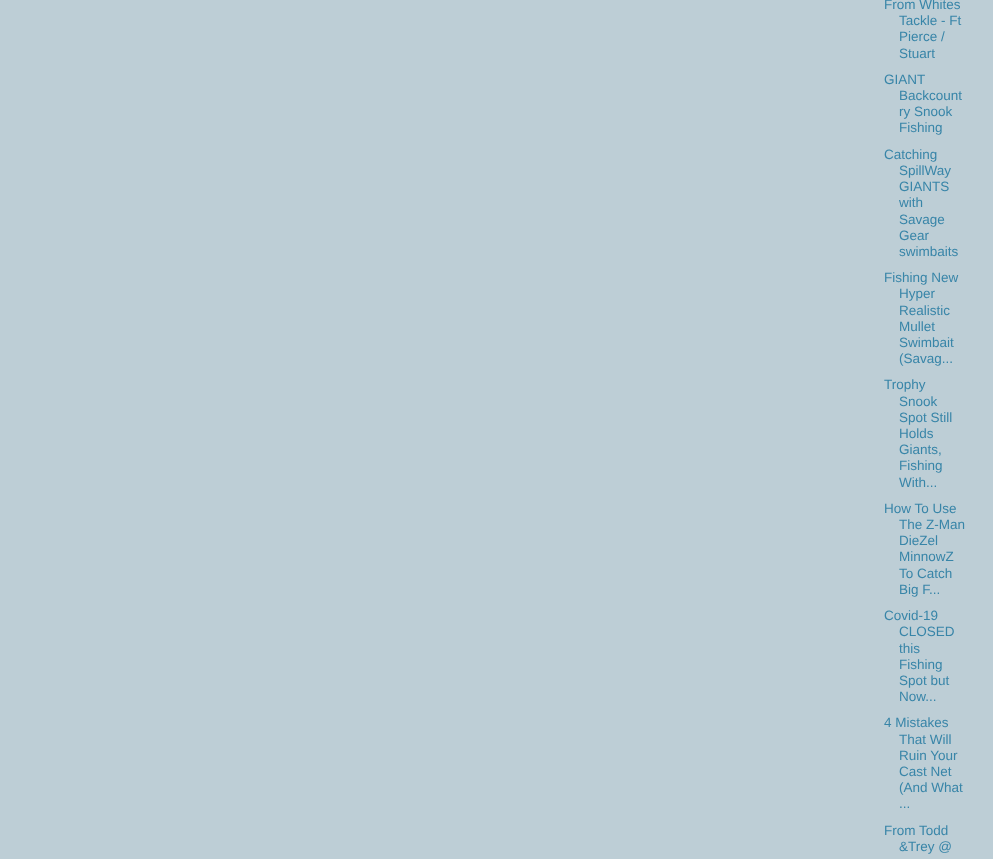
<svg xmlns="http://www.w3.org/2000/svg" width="993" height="859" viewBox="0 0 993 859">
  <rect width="100%" height="100%" fill="#bdced6"/>
  <text x="884" y="9" font-family="Liberation Sans" font-size="13.5" fill="#3885a8">From Whites</text>
  <text x="899" y="25" font-family="Liberation Sans" font-size="13.5" fill="#3885a8">Tackle - Ft</text>
  <text x="899" y="41" font-family="Liberation Sans" font-size="13.5" fill="#3885a8">Pierce /</text>
  <text x="899" y="58" font-family="Liberation Sans" font-size="13.5" fill="#3885a8">Stuart</text>
  <text x="884" y="84" font-family="Liberation Sans" font-size="13.5" fill="#3885a8">GIANT</text>
  <text x="899" y="100" font-family="Liberation Sans" font-size="13.5" fill="#3885a8">Backcount</text>
  <text x="899" y="116" font-family="Liberation Sans" font-size="13.5" fill="#3885a8">ry Snook</text>
  <text x="899" y="132" font-family="Liberation Sans" font-size="13.5" fill="#3885a8">Fishing</text>
  <text x="884" y="159" font-family="Liberation Sans" font-size="13.5" fill="#3885a8">Catching</text>
  <text x="899" y="175" font-family="Liberation Sans" font-size="13.5" fill="#3885a8">SpillWay</text>
  <text x="899" y="191" font-family="Liberation Sans" font-size="13.5" fill="#3885a8">GIANTS</text>
  <text x="899" y="207" font-family="Liberation Sans" font-size="13.5" fill="#3885a8">with</text>
  <text x="899" y="224" font-family="Liberation Sans" font-size="13.5" fill="#3885a8">Savage</text>
  <text x="899" y="240" font-family="Liberation Sans" font-size="13.5" fill="#3885a8">Gear</text>
  <text x="899" y="256" font-family="Liberation Sans" font-size="13.5" fill="#3885a8">swimbaits</text>
  <text x="884" y="282" font-family="Liberation Sans" font-size="13.5" fill="#3885a8">Fishing New</text>
  <text x="899" y="298" font-family="Liberation Sans" font-size="13.5" fill="#3885a8">Hyper</text>
  <text x="899" y="315" font-family="Liberation Sans" font-size="13.5" fill="#3885a8">Realistic</text>
  <text x="899" y="331" font-family="Liberation Sans" font-size="13.5" fill="#3885a8">Mullet</text>
  <text x="899" y="347" font-family="Liberation Sans" font-size="13.5" fill="#3885a8">Swimbait</text>
  <text x="899" y="363" font-family="Liberation Sans" font-size="13.5" fill="#3885a8">(Savag...</text>
  <text x="884" y="389" font-family="Liberation Sans" font-size="13.5" fill="#3885a8">Trophy</text>
  <text x="899" y="406" font-family="Liberation Sans" font-size="13.5" fill="#3885a8">Snook</text>
  <text x="899" y="422" font-family="Liberation Sans" font-size="13.5" fill="#3885a8">Spot Still</text>
  <text x="899" y="438" font-family="Liberation Sans" font-size="13.5" fill="#3885a8">Holds</text>
  <text x="899" y="454" font-family="Liberation Sans" font-size="13.5" fill="#3885a8">Giants,</text>
  <text x="899" y="470" font-family="Liberation Sans" font-size="13.5" fill="#3885a8">Fishing</text>
  <text x="899" y="487" font-family="Liberation Sans" font-size="13.5" fill="#3885a8">With...</text>
  <text x="884" y="513" font-family="Liberation Sans" font-size="13.5" fill="#3885a8">How To Use</text>
  <text x="899" y="529" font-family="Liberation Sans" font-size="13.5" fill="#3885a8">The Z-Man</text>
  <text x="899" y="545" font-family="Liberation Sans" font-size="13.5" fill="#3885a8">DieZel</text>
  <text x="899" y="561" font-family="Liberation Sans" font-size="13.5" fill="#3885a8">MinnowZ</text>
  <text x="899" y="578" font-family="Liberation Sans" font-size="13.5" fill="#3885a8">To Catch</text>
  <text x="899" y="594" font-family="Liberation Sans" font-size="13.5" fill="#3885a8">Big F...</text>
  <text x="884" y="620" font-family="Liberation Sans" font-size="13.5" fill="#3885a8">Covid-19</text>
  <text x="899" y="636" font-family="Liberation Sans" font-size="13.5" fill="#3885a8">CLOSED</text>
  <text x="899" y="653" font-family="Liberation Sans" font-size="13.5" fill="#3885a8">this</text>
  <text x="899" y="669" font-family="Liberation Sans" font-size="13.5" fill="#3885a8">Fishing</text>
  <text x="899" y="685" font-family="Liberation Sans" font-size="13.5" fill="#3885a8">Spot but</text>
  <text x="899" y="701" font-family="Liberation Sans" font-size="13.5" fill="#3885a8">Now...</text>
  <text x="884" y="727" font-family="Liberation Sans" font-size="13.5" fill="#3885a8">4 Mistakes</text>
  <text x="899" y="744" font-family="Liberation Sans" font-size="13.5" fill="#3885a8">That Will</text>
  <text x="899" y="760" font-family="Liberation Sans" font-size="13.5" fill="#3885a8">Ruin Your</text>
  <text x="899" y="776" font-family="Liberation Sans" font-size="13.5" fill="#3885a8">Cast Net</text>
  <text x="899" y="792" font-family="Liberation Sans" font-size="13.5" fill="#3885a8">(And What</text>
  <text x="899" y="808" font-family="Liberation Sans" font-size="13.5" fill="#3885a8">...</text>
  <text x="884" y="835" font-family="Liberation Sans" font-size="13.5" fill="#3885a8">From Todd</text>
  <text x="899" y="851" font-family="Liberation Sans" font-size="13.5" fill="#3885a8">&amp;Trey @</text>
</svg>
